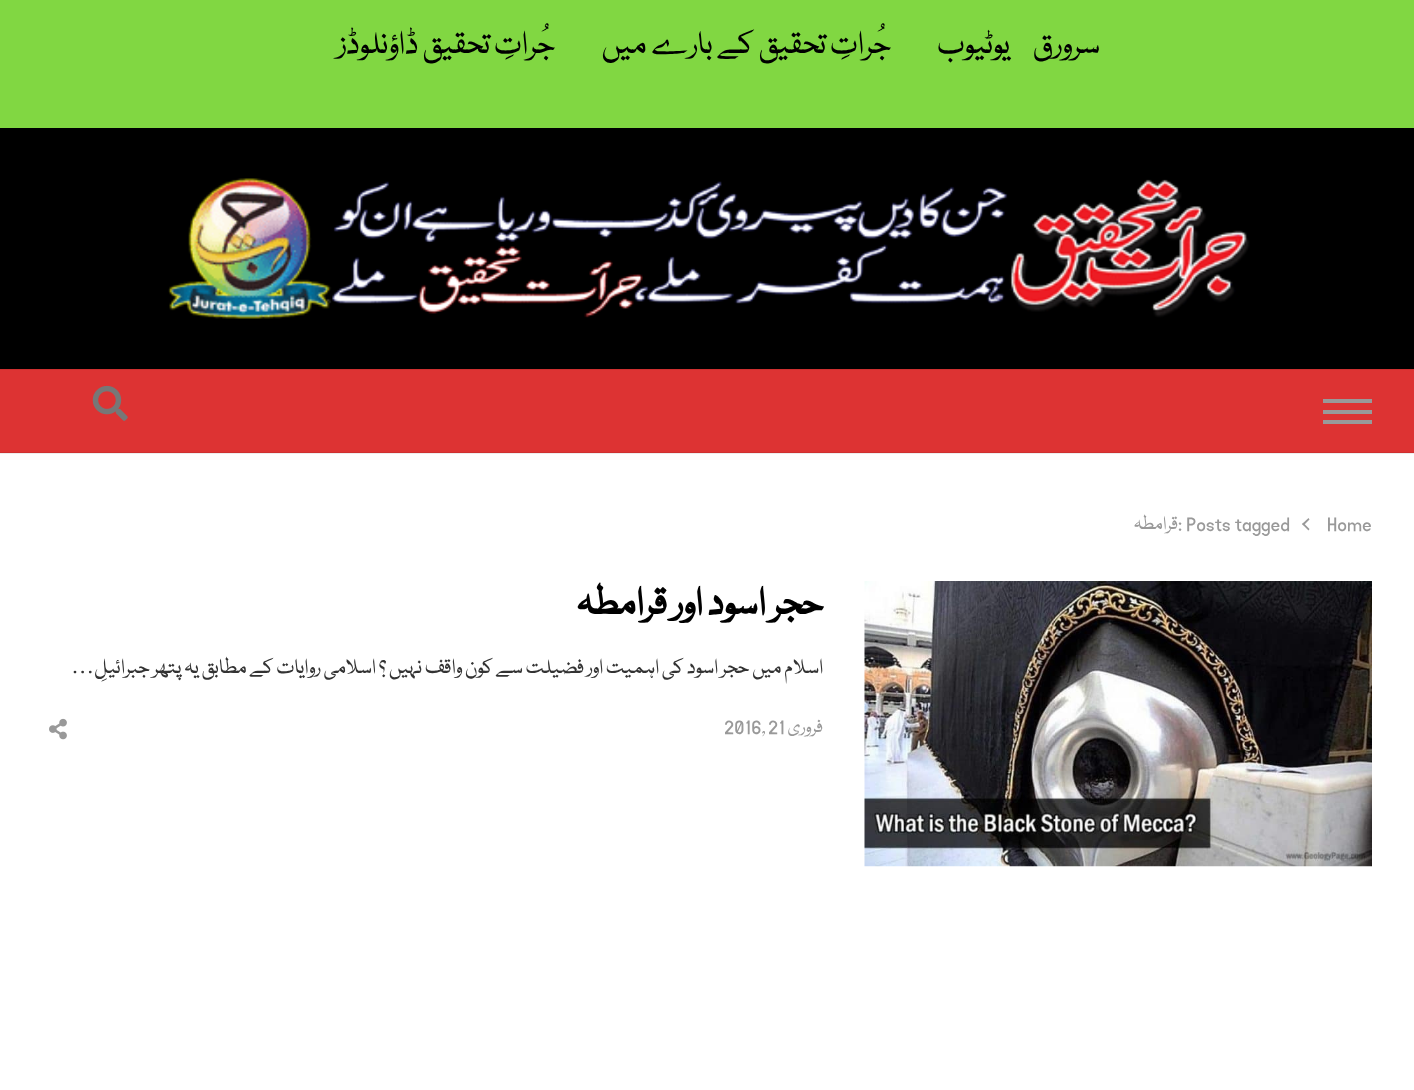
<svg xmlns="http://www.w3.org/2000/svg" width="1414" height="1090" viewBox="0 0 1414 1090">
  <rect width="100%" height="100%" fill="#ffffff"/>
  <rect x="0" y="453" width="1414" height="1" fill="#ededed"/>
  <rect x="0" y="0" width="1414" height="128" fill="#81d742"/>
  <text x="1100" y="53" font-family="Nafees" font-size="35" direction="rtl" fill="#000000">سرورق</text>
  <text x="1010" y="53" font-family="Nafees" font-size="35" direction="rtl" fill="#000000">یوٹیوب</text>
  <text x="891" y="53" font-family="Nafees" font-size="35" direction="rtl" fill="#000000">جُراتِ تحقیق کے بارے میں</text>
  <text x="555" y="53" font-family="Nafees" font-size="35" direction="rtl" fill="#000000">جُراتِ تحقیق ڈاؤنلوڈز</text>
  <rect x="0" y="128" width="1414" height="241" fill="#000000"/>
  <image x="168" y="178" width="1082" height="141" href="img1.png"/>
  <rect x="0" y="370" width="1414" height="82" fill="#dd3333"/>
  <rect x="0" y="369" width="1414" height="1" fill="#ce2f2f"/>
  <rect x="0" y="452" width="1414" height="1" fill="#ce2f2f"/>
  <rect x="1323" y="410" width="49" height="4" fill="#999999"/>
  <rect x="1323" y="399" width="49" height="4" fill="#999999"/>
  <rect x="1323" y="420" width="49" height="4" fill="#999999"/>
  <image x="92" y="385" width="36" height="36" href="img2.png"/>
  <text x="1327" y="529" font-family="Nafees" font-size="20.5" fill="#999999">Home</text>
  <path d="M1303.5 523L1309.5 529L1308.5 530.5L1302 524Z" fill="#999999"/>
  <path d="M1308.5 518L1309.5 519.5L1303.5 525.5L1302 524Z" fill="#999999"/>
  <text x="1178" y="529" font-family="Nafees" font-size="20.5" fill="#999999">: Posts tagged</text>
  <text x="1178" y="529" font-family="Nafees" font-size="20.5" direction="rtl" fill="#999999">قرامطہ</text>
  <image x="864" y="581" width="508" height="286" href="img3.png"/>
  <text x="823" y="614" font-family="Nafees" font-size="42" font-weight="bold" direction="rtl" fill="#000000">حجر اسود اور قرامطہ</text>
  <text x="823" y="673" font-family="Nafees" font-size="22.75" direction="rtl" fill="#333333">اسلام میں حجر اسود کی اہمیت اور فضیلت سے کون واقف نہیں ؟ اسلامی روایات کے مطابق یہ پتھر جبرائیلِ</text>
  <text x="94" y="673" font-family="Liberation Serif" font-size="22.75" direction="rtl" fill="#333333">…</text>
  <text x="823" y="732" font-family="Nafees" font-size="20.5" direction="rtl" fill="#999999">فروری</text>
  <text x="768" y="732" font-family="Nafees" font-size="20.5" fill="#999999">21</text>
  <text x="724" y="732" font-family="Nafees" font-size="20.5" fill="#999999">2016,</text>
  <image x="49" y="718" width="18" height="22" href="img4.png"/>
</svg>
